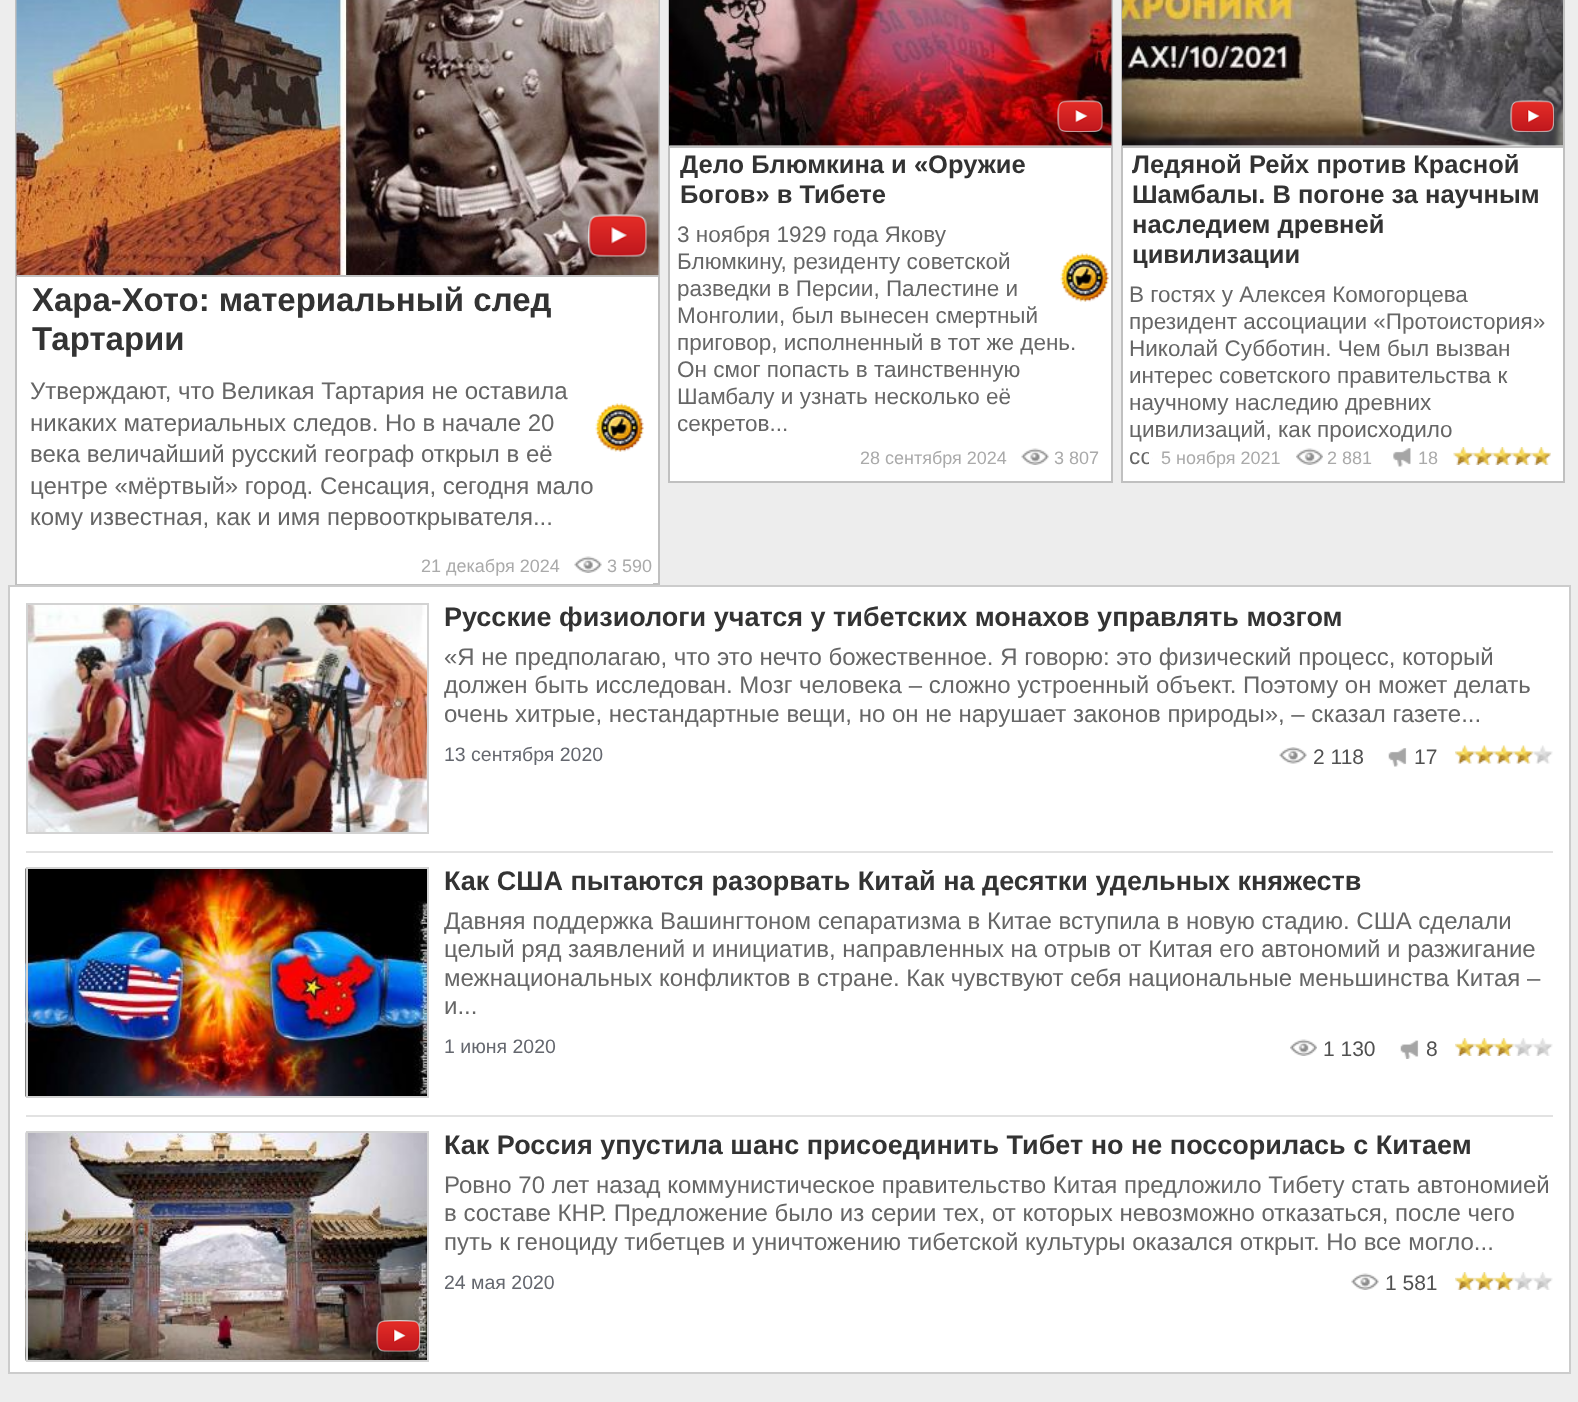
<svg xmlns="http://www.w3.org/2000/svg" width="1578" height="1402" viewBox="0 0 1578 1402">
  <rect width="100%" height="100%" fill="#ededed"/>
  <rect x="17" y="277" width="641" height="306" fill="#ffffff"/>
  <rect x="16" y="-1" width="643" height="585" fill="none" stroke="#c0c0c0" stroke-width="2"/>
  <image x="16" y="0" width="643" height="276" href="img1.png"/>
  <rect x="17" y="275" width="642" height="2" fill="#c0c0c0"/>
  <image x="588" y="214" width="59" height="43" href="img2.png"/>
  <text x="32" y="311" font-family="Liberation Sans" font-size="33" font-weight="bold" fill="#333333">Хара-Хото: материальный след</text>
  <text x="32" y="350" font-family="Liberation Sans" font-size="33" font-weight="bold" fill="#333333">Тартарии</text>
  <text x="30" y="399" font-family="Liberation Sans" font-size="24" fill="#666666">Утверждают, что Великая Тартария не оставила</text>
  <text x="30" y="431" font-family="Liberation Sans" font-size="24" fill="#666666">никаких материальных следов. Но в начале 20</text>
  <text x="30" y="462" font-family="Liberation Sans" font-size="24" fill="#666666">века величайший русский географ открыл в её</text>
  <text x="30" y="494" font-family="Liberation Sans" font-size="24" fill="#666666">центре «мёртвый» город. Сенсация, сегодня мало</text>
  <text x="30" y="525" font-family="Liberation Sans" font-size="24" fill="#666666">кому известная, как и имя первооткрывателя...</text>
  <image x="595" y="403" width="49" height="49" href="img3.png"/>
  <rect x="17" y="583" width="636" height="1" fill="#ffffff"/>
  <text x="421" y="572" font-family="Liberation Sans" font-size="18" fill="#aaaaaa">21 декабря 2024</text>
  <image x="574" y="556" width="28" height="17" href="img4.png"/>
  <text x="607" y="572" font-family="Liberation Sans" font-size="18" fill="#aaaaaa">3 590</text>
  <rect x="670" y="145" width="441" height="336" fill="#ffffff"/>
  <rect x="669" y="-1" width="443" height="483" fill="none" stroke="#c0c0c0" stroke-width="2"/>
  <image x="669" y="0" width="443" height="146" href="img5.png"/>
  <rect x="669" y="146" width="443" height="2" fill="#c0c0c0"/>
  <image x="1057" y="100" width="46" height="32" href="img6.png"/>
  <text x="680" y="173" font-family="Liberation Sans" font-size="25.5" font-weight="bold" fill="#333333">Дело Блюмкина и «Оружие</text>
  <text x="680" y="203" font-family="Liberation Sans" font-size="25.5" font-weight="bold" fill="#333333">Богов» в Тибете</text>
  <text x="677" y="242" font-family="Liberation Sans" font-size="22.5" fill="#666666">3 ноября 1929 года Якову</text>
  <text x="677" y="269" font-family="Liberation Sans" font-size="22.5" fill="#666666">Блюмкину, резиденту советской</text>
  <text x="677" y="296" font-family="Liberation Sans" font-size="22.5" fill="#666666">разведки в Персии, Палестине и</text>
  <text x="677" y="323" font-family="Liberation Sans" font-size="22.5" fill="#666666">Монголии, был вынесен смертный</text>
  <text x="677" y="350" font-family="Liberation Sans" font-size="22.5" fill="#666666">приговор, исполненный в тот же день.</text>
  <text x="677" y="377" font-family="Liberation Sans" font-size="22.5" fill="#666666">Он смог попасть в таинственную</text>
  <text x="677" y="404" font-family="Liberation Sans" font-size="22.5" fill="#666666">Шамбалу и узнать несколько её</text>
  <text x="677" y="431" font-family="Liberation Sans" font-size="22.5" fill="#666666">секретов...</text>
  <image x="1060" y="253" width="49" height="49" href="img7.png"/>
  <text x="860" y="464" font-family="Liberation Sans" font-size="18" fill="#aaaaaa">28 сентября 2024</text>
  <image x="1021" y="448" width="28" height="17" href="img8.png"/>
  <text x="1054" y="464" font-family="Liberation Sans" font-size="18" fill="#aaaaaa">3 807</text>
  <rect x="1123" y="145" width="440" height="336" fill="#ffffff"/>
  <rect x="1122" y="-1" width="442" height="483" fill="none" stroke="#c0c0c0" stroke-width="2"/>
  <image x="1122" y="0" width="441" height="146" href="img9.png"/>
  <rect x="1122" y="146" width="441" height="2" fill="#c0c0c0"/>
  <image x="1510" y="100" width="44" height="32" href="img10.png"/>
  <text x="1132" y="173" font-family="Liberation Sans" font-size="25.5" font-weight="bold" fill="#333333">Ледяной Рейх против Красной</text>
  <text x="1132" y="203" font-family="Liberation Sans" font-size="25.5" font-weight="bold" fill="#333333">Шамбалы. В погоне за научным</text>
  <text x="1132" y="233" font-family="Liberation Sans" font-size="25.5" font-weight="bold" fill="#333333">наследием древней</text>
  <text x="1132" y="263" font-family="Liberation Sans" font-size="25.5" font-weight="bold" fill="#333333">цивилизации</text>
  <text x="1129" y="302" font-family="Liberation Sans" font-size="22.5" fill="#666666">В гостях у Алексея Комогорцева</text>
  <text x="1129" y="329" font-family="Liberation Sans" font-size="22.5" fill="#666666">президент ассоциации «Протоистория»</text>
  <text x="1129" y="356" font-family="Liberation Sans" font-size="22.5" fill="#666666">Николай Субботин. Чем был вызван</text>
  <text x="1129" y="383" font-family="Liberation Sans" font-size="22.5" fill="#666666">интерес советского правительства к</text>
  <text x="1129" y="410" font-family="Liberation Sans" font-size="22.5" fill="#666666">научному наследию древних</text>
  <text x="1129" y="437" font-family="Liberation Sans" font-size="22.5" fill="#666666">цивилизаций, как происходило</text>
  <text x="1129" y="464" font-family="Liberation Sans" font-size="22.5" fill="#666666">со</text>
  <rect x="1149" y="452" width="3" height="12" fill="#ffffff"/>
  <text x="1161" y="464" font-family="Liberation Sans" font-size="18" fill="#aaaaaa">5 ноября 2021</text>
  <image x="1296" y="448" width="27" height="17" href="img11.png"/>
  <text x="1327" y="464" font-family="Liberation Sans" font-size="18" fill="#aaaaaa">2 881</text>
  <image x="1393" y="448" width="18" height="19" href="img12.png"/>
  <text x="1418" y="464" font-family="Liberation Sans" font-size="18" fill="#aaaaaa">18</text>
  <image x="1453" y="447" width="20" height="18" href="img13.png"/>
  <image x="1473" y="447" width="20" height="18" href="img14.png"/>
  <image x="1492" y="447" width="20" height="18" href="img15.png"/>
  <image x="1512" y="447" width="20" height="18" href="img14.png"/>
  <image x="1531" y="447" width="20" height="18" href="img16.png"/>
  <rect x="9" y="586" width="1561" height="787" fill="#ffffff" stroke="#cccccc" stroke-width="2"/>
  <image x="28" y="605" width="399" height="227" href="img17.png"/>
  <rect x="27" y="604" width="401" height="229" fill="none" stroke="#d3d3d3" stroke-width="2"/>
  <text x="444" y="626" font-family="Liberation Sans" font-size="27" font-weight="bold" fill="#333333">Русские физиологи учатся у тибетских монахов управлять мозгом</text>
  <text x="444" y="665" font-family="Liberation Sans" font-size="24" fill="#666666">«Я не предполагаю, что это нечто божественное. Я говорю: это физический процесс, который</text>
  <text x="444" y="693" font-family="Liberation Sans" font-size="24" fill="#666666">должен быть исследован. Мозг человека – сложно устроенный объект. Поэтому он может делать</text>
  <text x="444" y="722" font-family="Liberation Sans" font-size="24" fill="#666666">очень хитрые, нестандартные вещи, но он не нарушает законов природы», – сказал газете...</text>
  <text x="444" y="761" font-family="Liberation Sans" font-size="19.5" fill="#64676e">13 сентября 2020</text>
  <image x="1279" y="747" width="28" height="17" href="img18.png"/>
  <text x="1313" y="764" font-family="Liberation Sans" font-size="21" fill="#505050">2 118</text>
  <image x="1388" y="748" width="19" height="19" href="img19.png"/>
  <text x="1414" y="764" font-family="Liberation Sans" font-size="21" fill="#505050">17</text>
  <image x="1455" y="745" width="20" height="19" href="img20.png"/>
  <image x="1474" y="745" width="20" height="19" href="img21.png"/>
  <image x="1494" y="745" width="20" height="19" href="img22.png"/>
  <image x="1513" y="745" width="20" height="19" href="img23.png"/>
  <image x="1533" y="745" width="20" height="19" href="img24.png"/>
  <rect x="26" y="851" width="1527" height="2" fill="#e2e2e2"/>
  <image x="25" y="868" width="402" height="229" href="img25.png"/>
  <rect x="27" y="868" width="401" height="229" fill="none" stroke="#d3d3d3" stroke-width="2"/>
  <text x="444" y="890" font-family="Liberation Sans" font-size="27" font-weight="bold" fill="#333333">Как США пытаются разорвать Китай на десятки удельных княжеств</text>
  <text x="444" y="929" font-family="Liberation Sans" font-size="24" fill="#666666">Давняя поддержка Вашингтоном сепаратизма в Китае вступила в новую стадию. США сделали</text>
  <text x="444" y="957" font-family="Liberation Sans" font-size="24" fill="#666666">целый ряд заявлений и инициатив, направленных на отрыв от Китая его автономий и разжигание</text>
  <text x="444" y="986" font-family="Liberation Sans" font-size="24" fill="#666666">межнациональных конфликтов в стране. Как чувствуют себя национальные меньшинства Китая –</text>
  <text x="444" y="1014" font-family="Liberation Sans" font-size="24" fill="#666666">и...</text>
  <text x="444" y="1053" font-family="Liberation Sans" font-size="19.5" fill="#64676e">1 июня 2020</text>
  <image x="1290" y="1039" width="27" height="17" href="img26.png"/>
  <text x="1323" y="1056" font-family="Liberation Sans" font-size="21" fill="#505050">1 130</text>
  <image x="1400" y="1040" width="19" height="19" href="img27.png"/>
  <text x="1426" y="1056" font-family="Liberation Sans" font-size="21" fill="#505050">8</text>
  <image x="1455" y="1038" width="20" height="18" href="img28.png"/>
  <image x="1474" y="1038" width="20" height="18" href="img15.png"/>
  <image x="1494" y="1038" width="20" height="18" href="img14.png"/>
  <image x="1513" y="1038" width="20" height="18" href="img29.png"/>
  <image x="1533" y="1038" width="20" height="18" href="img30.png"/>
  <rect x="26" y="1115" width="1527" height="2" fill="#e2e2e2"/>
  <image x="25" y="1132" width="402" height="229" href="img31.png"/>
  <rect x="27" y="1132" width="401" height="229" fill="none" stroke="#d3d3d3" stroke-width="2"/>
  <image x="376" y="1320" width="44" height="32" href="img32.png"/>
  <text x="444" y="1154" font-family="Liberation Sans" font-size="27" font-weight="bold" fill="#333333">Как Россия упустила шанс присоединить Тибет но не поссорилась с Китаем</text>
  <text x="444" y="1193" font-family="Liberation Sans" font-size="24" fill="#666666">Ровно 70 лет назад коммунистическое правительство Китая предложило Тибету стать автономией</text>
  <text x="444" y="1221" font-family="Liberation Sans" font-size="24" fill="#666666">в составе КНР. Предложение было из серии тех, от которых невозможно отказаться, после чего</text>
  <text x="444" y="1250" font-family="Liberation Sans" font-size="24" fill="#666666">путь к геноциду тибетцев и уничтожению тибетской культуры оказался открыт. Но все могло...</text>
  <text x="444" y="1289" font-family="Liberation Sans" font-size="19.5" fill="#64676e">24 мая 2020</text>
  <image x="1351" y="1273" width="28" height="17" href="img4.png"/>
  <text x="1385" y="1290" font-family="Liberation Sans" font-size="21" fill="#505050">1 581</text>
  <image x="1455" y="1272" width="20" height="18" href="img28.png"/>
  <image x="1474" y="1272" width="20" height="18" href="img15.png"/>
  <image x="1494" y="1272" width="20" height="18" href="img14.png"/>
  <image x="1513" y="1272" width="20" height="18" href="img29.png"/>
  <image x="1533" y="1272" width="20" height="18" href="img30.png"/>
</svg>
